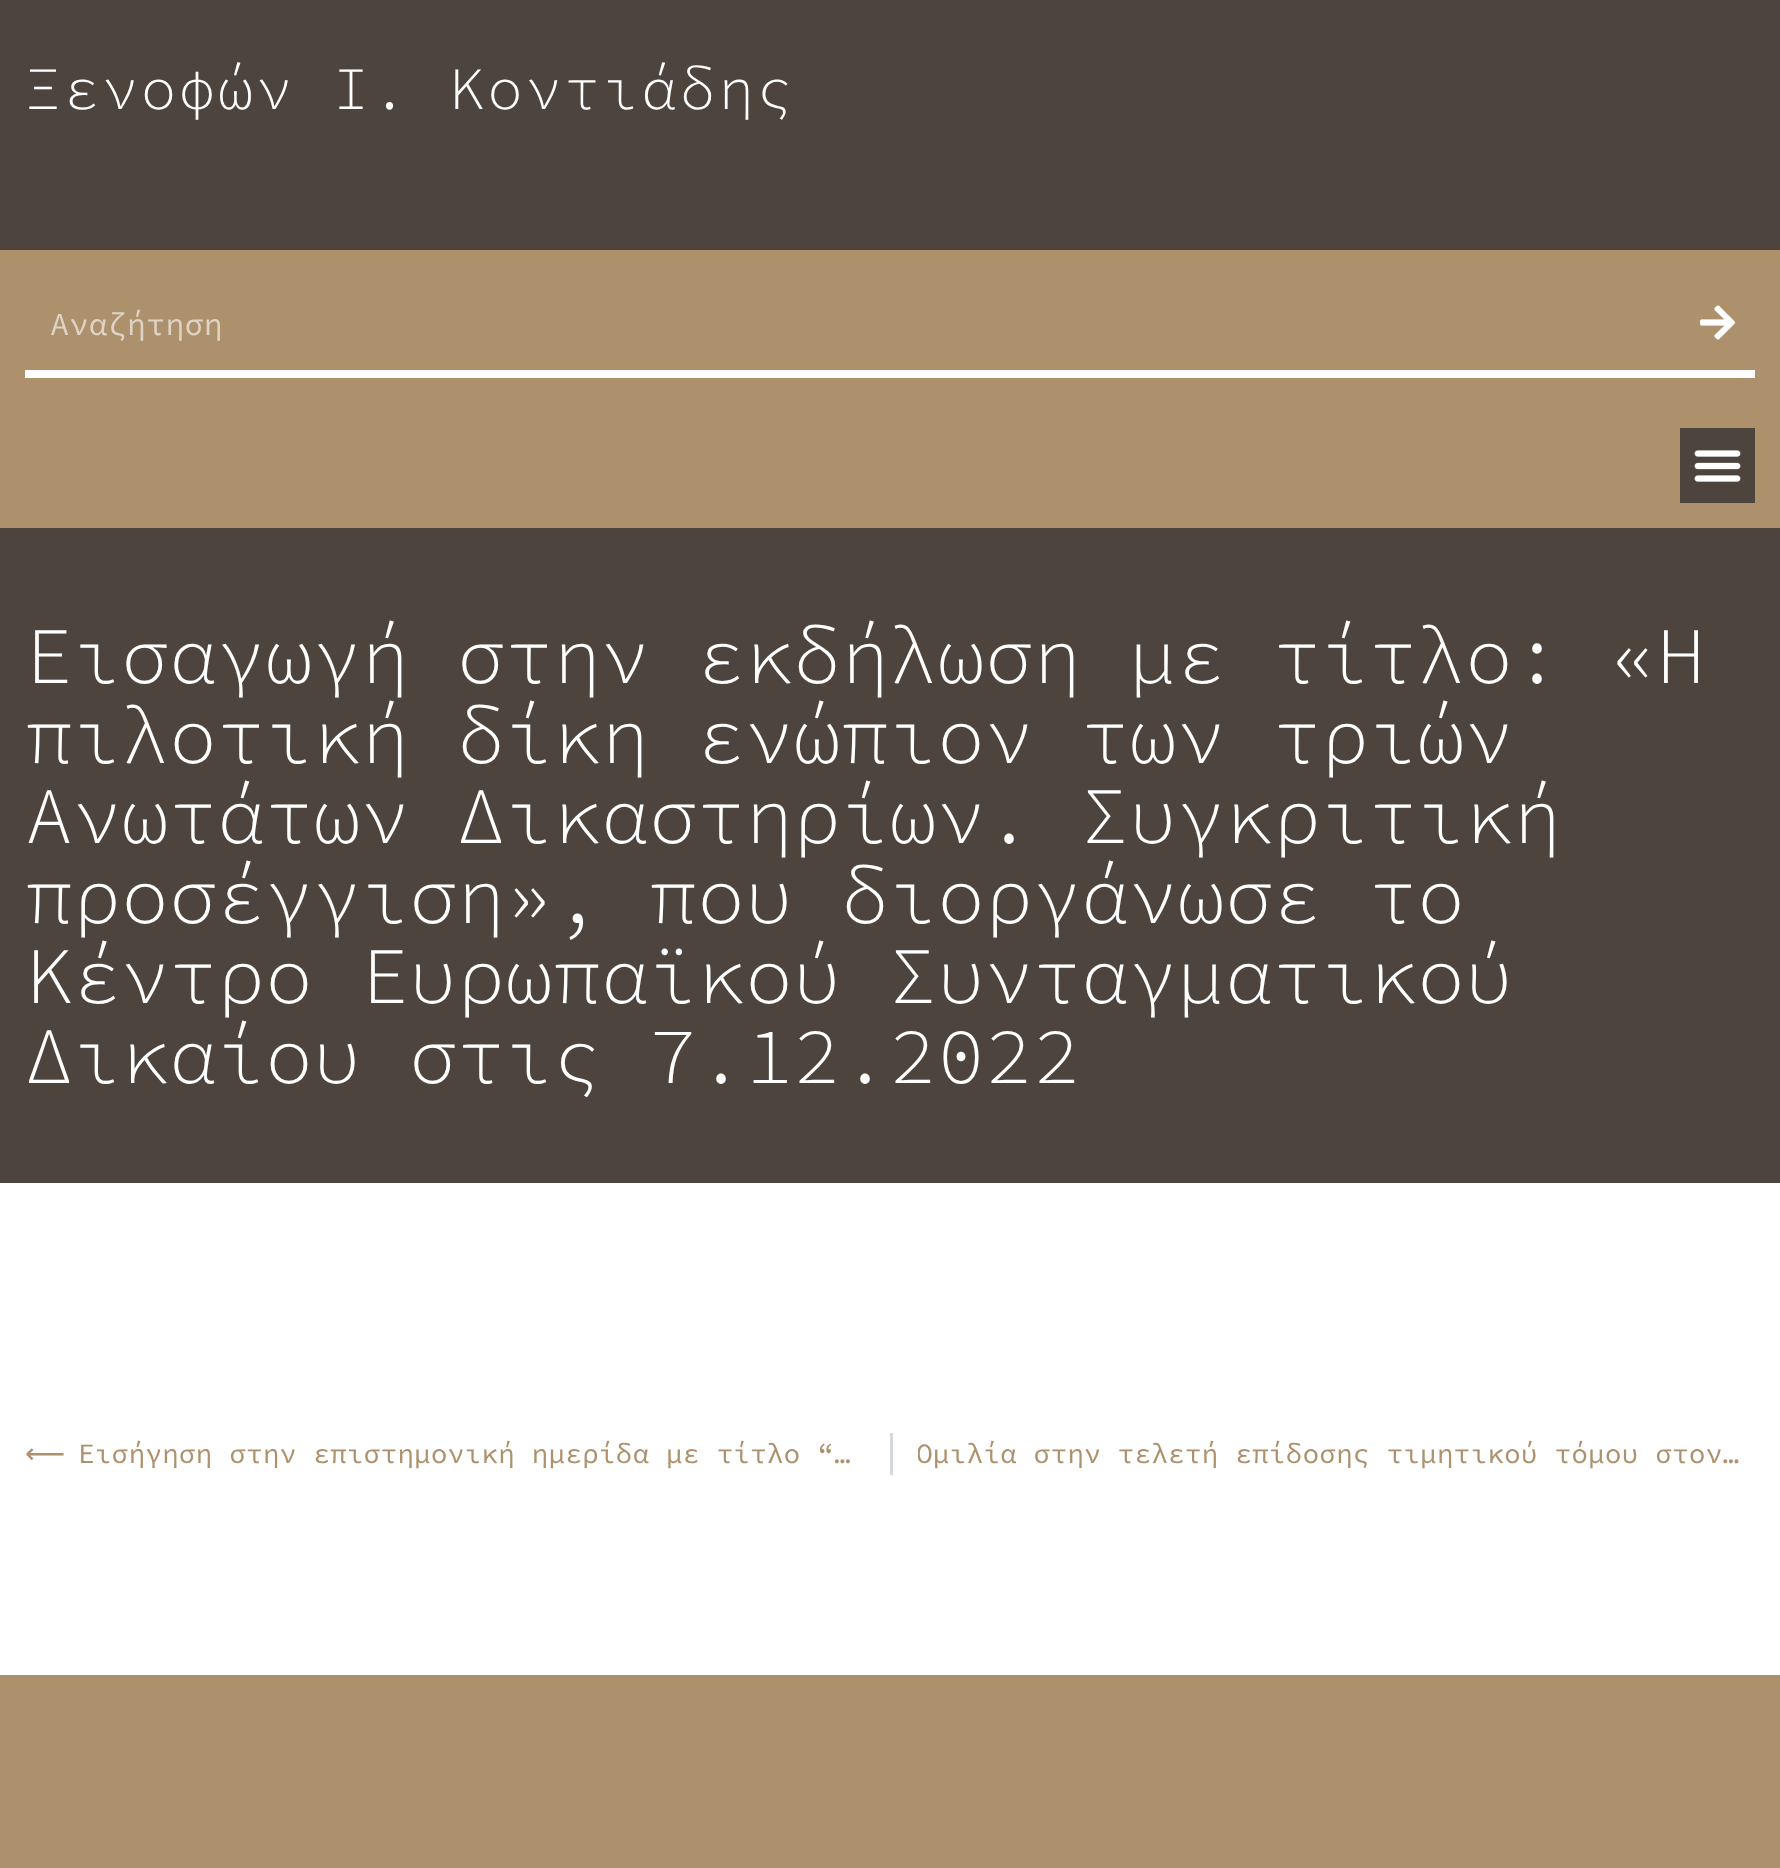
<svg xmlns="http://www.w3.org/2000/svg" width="1780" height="1868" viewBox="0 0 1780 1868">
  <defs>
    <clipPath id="clip1"><rect x="918" y="1433" width="837" height="42"/></clipPath>
  </defs>
  <rect width="100%" height="100%" fill="#ffffff"/>
  <rect x="0" y="0" width="1780" height="250" fill="#4d443d"/>
  <text x="25" y="109" font-family="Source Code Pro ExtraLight" font-size="60" font-weight="300" letter-spacing="2.5" fill="#ffffff">Ξενοφών Ι. Κοντιάδης</text>
  <rect x="0" y="250" width="1780" height="278" fill="#ad916c"/>
  <rect x="25" y="370" width="1730" height="8" fill="#ffffff"/>
  <text x="50" y="335" font-family="Source Code Pro ExtraLight" font-size="32" fill="#ded3c4">Αναζήτηση</text>
  <image x="1700" y="305" width="35" height="35" href="img1.png"/>
  <rect x="1680" y="428" width="75" height="75" fill="#4d443d"/>
  <image x="1694" y="450" width="47" height="32" href="img2.png"/>
  <rect x="0" y="528" width="1780" height="655" fill="#4d443d"/>
  <text x="25" y="683" font-family="Source Code Pro ExtraLight" font-size="80" font-weight="300" fill="#ffffff">Εισαγωγή στην εκδήλωση με τίτλο: «Η</text>
  <text x="25" y="763" font-family="Source Code Pro ExtraLight" font-size="80" font-weight="300" fill="#ffffff">πιλοτική δίκη ενώπιον των τριών</text>
  <text x="25" y="843" font-family="Source Code Pro ExtraLight" font-size="80" font-weight="300" fill="#ffffff">Ανωτάτων Δικαστηρίων. Συγκριτική</text>
  <text x="25" y="923" font-family="Source Code Pro ExtraLight" font-size="80" font-weight="300" fill="#ffffff">προσέγγιση», που διοργάνωσε το</text>
  <text x="25" y="1003" font-family="Source Code Pro ExtraLight" font-size="80" font-weight="300" fill="#ffffff">Κέντρο Ευρωπαϊκού Συνταγματικού</text>
  <text x="25" y="1083" font-family="Source Code Pro ExtraLight" font-size="80" font-weight="300" fill="#ffffff">Δικαίου στις 7.12.2022</text>
  <text x="25" y="1463" font-family="DejaVu Sans" font-size="28" fill="#ad916c">⟵</text>
  <text x="78" y="1463" font-family="Source Code Pro ExtraLight" font-size="28" fill="#ad916c">Εισήγηση στην επιστημονική ημερίδα με τίτλο “…</text>
  <rect x="890" y="1433" width="3" height="42" fill="#d5d8dc"/>
  <g clip-path="url(#clip1)">
    <text x="916" y="1463" font-family="Source Code Pro ExtraLight" font-size="28" fill="#ad916c">Ομιλία στην τελετή επίδοσης τιμητικού τόμου στον…</text>
  </g>
  <rect x="0" y="1675" width="1780" height="193" fill="#ad916c"/>
</svg>
